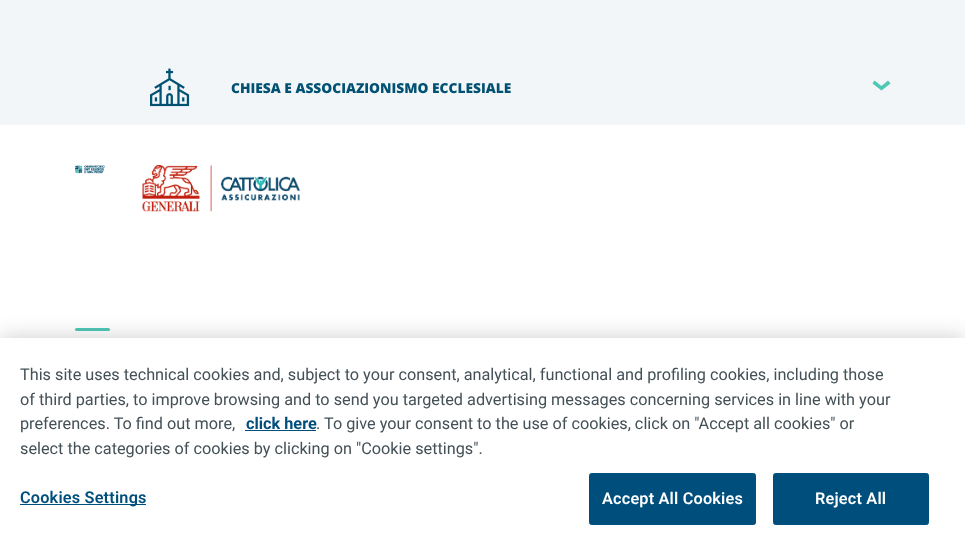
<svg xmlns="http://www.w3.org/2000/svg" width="965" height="550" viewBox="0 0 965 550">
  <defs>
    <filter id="blur1" x="-50%" y="-200%" width="200%" height="500%"><feGaussianBlur stdDeviation="11"/></filter>
  </defs>
  <rect width="100%" height="100%" fill="#ffffff"/>
  <rect x="0" y="0" width="965" height="125" fill="#f2f6f8"/>
  <image x="150" y="68" width="40" height="39" href="img1.png"/>
  <text x="231" y="93" font-family="Open Sans" font-size="13.75" font-weight="800" fill="#005172">CHIESA E ASSOCIAZIONISMO ECCLESIALE</text>
  <path d="M881.5 86L888 80.5L890.5 83.5L881.5 90.5L872.5 83.5L874.5 80.5Z" fill="#4fc7b5"/>
  <image x="75" y="165" width="30" height="9" href="img2.png"/>
  <image x="142" y="165" width="158" height="47" href="img3.png"/>
  <rect x="75" y="328" width="35" height="3" rx="1.5" fill="#4fc7b5"/>
  <rect x="0" y="338" width="965" height="212" fill="#000000" fill-opacity="0.2" filter="url(#blur1)"/>
  <rect x="0" y="338" width="965" height="212" fill="#ffffff"/>
  <text x="20" y="380" font-family="Roboto" font-size="16.25" fill="#435056">This site uses technical cookies and, subject to your consent, analytical, functional and profiling cookies, including those</text>
  <text x="20" y="405" font-family="Roboto" font-size="16.25" fill="#435056">of third parties, to improve browsing and to send you targeted advertising messages concerning services in line with your</text>
  <text x="20" y="429" font-family="Roboto" font-size="16.25" fill="#435056">preferences. To find out more,</text>
  <text x="246" y="429" font-family="Roboto" font-size="16.25" font-weight="bold" fill="#004e7b">click here</text>
  <rect x="245" y="430" width="71" height="1" fill="#004e7b"/>
  <text x="316" y="429" font-family="Roboto" font-size="16.25" fill="#435056">. To give your consent to the use of cookies, click on "Accept all cookies" or</text>
  <text x="20" y="454" font-family="Roboto" font-size="16.25" fill="#435056">select the categories of cookies by clicking on "Cookie settings".</text>
  <rect x="20" y="504" width="126" height="1" fill="#004e7b"/>
  <text x="20" y="503" font-family="Roboto" font-size="16.25" font-weight="600" letter-spacing="0.2" fill="#004e7b">Cookies Settings</text>
  <rect x="589.5" y="473.5" width="166" height="51" rx="2" fill="#004e7b" stroke="#004e7b"/>
  <text x="602" y="504" font-family="Roboto" font-size="16.25" font-weight="600" letter-spacing="0.2" fill="#ffffff">Accept All Cookies</text>
  <rect x="773.5" y="473.5" width="155" height="51" rx="2" fill="#004e7b" stroke="#004e7b"/>
  <text x="815" y="504" font-family="Roboto" font-size="16.25" font-weight="600" letter-spacing="0.2" fill="#ffffff">Reject All</text>
</svg>
